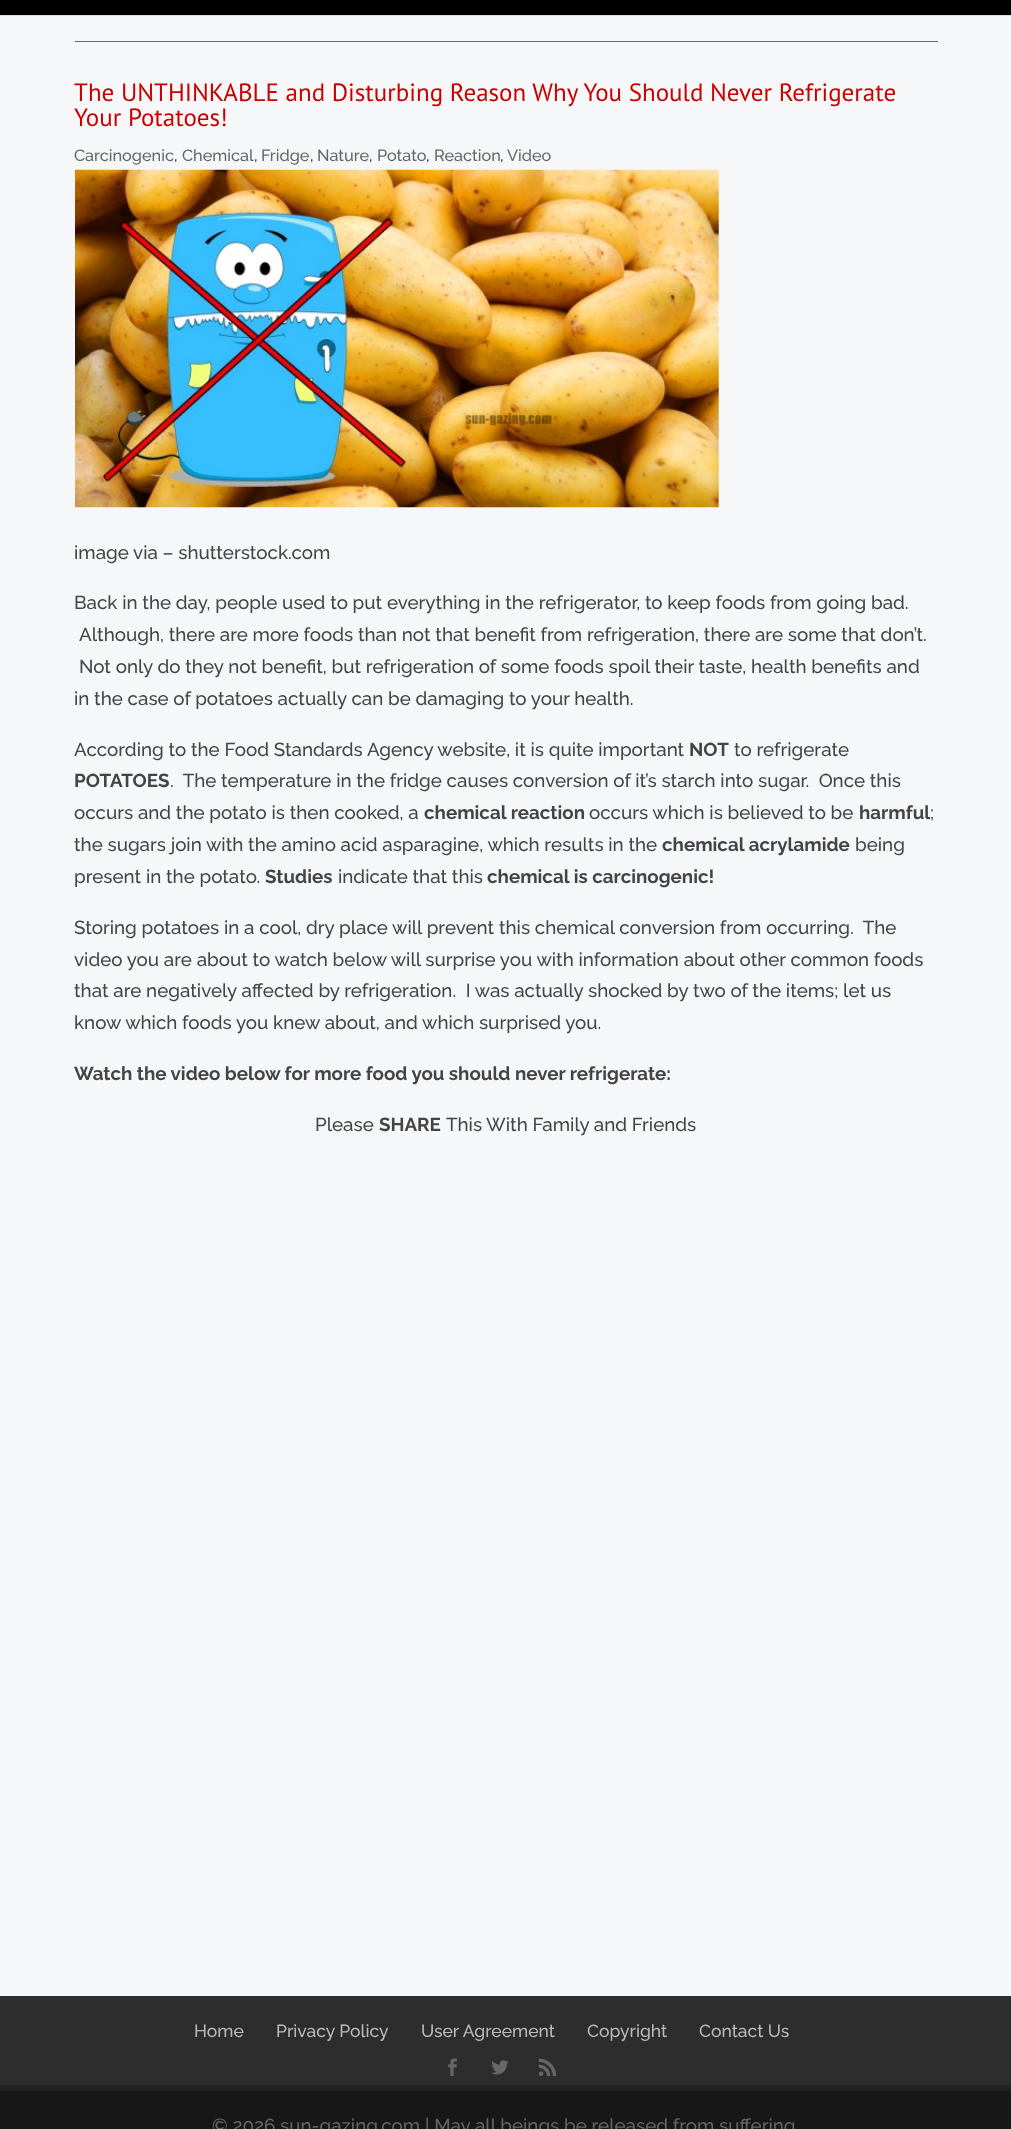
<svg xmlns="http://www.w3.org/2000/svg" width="1011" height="2129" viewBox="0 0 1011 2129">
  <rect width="100%" height="100%" fill="#f6f7f8"/>
  <rect x="0" y="15" width="1011" height="1" fill="#dddedf"/>
  <rect x="0" y="0" width="1011" height="15" fill="#000000"/>
  <rect x="75" y="41" width="863" height="1" fill="#666666"/>
  <text x="74" y="101" font-family="PT Sans" font-size="25" fill="#c90000">The UNTHINKABLE and Disturbing Reason Why You Should Never Refrigerate</text>
  <text x="74" y="126" font-family="PT Sans" font-size="25" fill="#c90000">Your Potatoes!</text>
  <text x="74" y="161" font-family="Raleway" font-size="16.25" font-weight="500" fill="#666666">Carcinogenic</text>
  <text x="174" y="161" font-family="Raleway" font-size="16.25" font-weight="500" fill="#444444">,</text>
  <text x="182" y="161" font-family="Raleway" font-size="16.25" font-weight="500" fill="#666666">Chemical</text>
  <text x="254" y="161" font-family="Raleway" font-size="16.25" font-weight="500" fill="#444444">,</text>
  <text x="261" y="161" font-family="Raleway" font-size="16.25" font-weight="500" fill="#666666">Fridge</text>
  <text x="310" y="161" font-family="Raleway" font-size="16.25" font-weight="500" fill="#444444">,</text>
  <text x="317" y="161" font-family="Raleway" font-size="16.25" font-weight="500" fill="#666666">Nature</text>
  <text x="369" y="161" font-family="Raleway" font-size="16.25" font-weight="500" fill="#444444">,</text>
  <text x="377" y="161" font-family="Raleway" font-size="16.25" font-weight="500" fill="#666666">Potato</text>
  <text x="426" y="161" font-family="Raleway" font-size="16.25" font-weight="500" fill="#444444">,</text>
  <text x="434" y="161" font-family="Raleway" font-size="16.25" font-weight="500" fill="#666666">Reaction</text>
  <text x="500" y="161" font-family="Raleway" font-size="16.25" font-weight="500" fill="#444444">,</text>
  <text x="507" y="161" font-family="Raleway" font-size="16.25" font-weight="500" fill="#666666">Video</text>
  <image x="75" y="169" width="644" height="339" href="img1.png"/>
  <text x="74" y="559" font-family="Raleway" font-size="18.75" font-weight="500" fill="#444444">image via – shutterstock.com</text>
  <text x="74" y="609" font-family="Raleway" font-size="18.75" font-weight="500" fill="#444444">Back in the day, people used to put everything in the refrigerator, to keep foods from going bad.</text>
  <text x="79" y="641" font-family="Raleway" font-size="18.75" font-weight="500" fill="#444444">Although, there are more foods than not that benefit from refrigeration, there are some that don’t.</text>
  <text x="79" y="673" font-family="Raleway" font-size="18.75" font-weight="500" fill="#444444">Not only do they not benefit, but refrigeration of some foods spoil their taste, health benefits and</text>
  <text x="74" y="705" font-family="Raleway" font-size="18.75" font-weight="500" fill="#444444">in the case of potatoes actually can be damaging to your health.</text>
  <text x="74" y="756" font-family="Raleway" font-size="18.75" font-weight="500" fill="#444444">According to the Food Standards Agency website, it is quite important</text>
  <text x="689" y="756" font-family="Raleway" font-size="18.75" font-weight="bold" fill="#444444">NOT</text>
  <text x="734" y="756" font-family="Raleway" font-size="18.75" font-weight="500" fill="#444444">to refrigerate</text>
  <text x="74" y="787" font-family="Raleway" font-size="18.75" font-weight="bold" fill="#444444">POTATOES</text>
  <text x="170" y="787" font-family="Raleway" font-size="18.75" font-weight="500" fill="#444444" xml:space="preserve">.  The temperature in the fridge causes conversion of it’s starch into sugar.  Once this</text>
  <text x="74" y="819" font-family="Raleway" font-size="18.75" font-weight="500" fill="#444444">occurs and the potato is then cooked, a</text>
  <text x="424" y="819" font-family="Raleway" font-size="18.75" font-weight="bold" fill="#444444">chemical reaction</text>
  <text x="589" y="819" font-family="Raleway" font-size="18.75" font-weight="500" fill="#444444">occurs which is believed to be</text>
  <text x="859" y="819" font-family="Raleway" font-size="18.75" font-weight="bold" fill="#444444">harmful</text>
  <text x="930" y="819" font-family="Raleway" font-size="18.75" font-weight="500" fill="#444444">;</text>
  <text x="74" y="851" font-family="Raleway" font-size="18.75" font-weight="500" fill="#444444">the sugars join with the amino acid asparagine, which results in the</text>
  <text x="662" y="851" font-family="Raleway" font-size="18.75" font-weight="bold" fill="#444444">chemical acrylamide</text>
  <text x="855" y="851" font-family="Raleway" font-size="18.75" font-weight="500" fill="#444444">being</text>
  <text x="74" y="883" font-family="Raleway" font-size="18.75" font-weight="500" fill="#444444">present in the potato.</text>
  <text x="265" y="883" font-family="Raleway" font-size="18.75" font-weight="bold" fill="#444444">Studies</text>
  <text x="338" y="883" font-family="Raleway" font-size="18.75" font-weight="500" fill="#444444">indicate that this</text>
  <text x="487" y="883" font-family="Raleway" font-size="18.75" font-weight="bold" fill="#444444">chemical is carcinogenic!</text>
  <text x="74" y="934" font-family="Raleway" font-size="18.75" font-weight="500" fill="#444444" xml:space="preserve">Storing potatoes in a cool, dry place will prevent this chemical conversion from occurring.  The</text>
  <text x="74" y="966" font-family="Raleway" font-size="18.75" font-weight="500" fill="#444444">video you are about to watch below will surprise you with information about other common foods</text>
  <text x="74" y="997" font-family="Raleway" font-size="18.75" font-weight="500" fill="#444444" xml:space="preserve">that are negatively affected by refrigeration.  I was actually shocked by two of the items; let us</text>
  <text x="74" y="1029" font-family="Raleway" font-size="18.75" font-weight="500" fill="#444444">know which foods you knew about, and which surprised you.</text>
  <text x="74" y="1080" font-family="Raleway" font-size="18.75" font-weight="bold" fill="#444444">Watch the video below for more food you should never refrigerate:</text>
  <text x="315" y="1131" font-family="Raleway" font-size="18.75" font-weight="500" fill="#444444">Please</text>
  <text x="379" y="1131" font-family="Raleway" font-size="18.75" font-weight="bold" fill="#444444">SHARE</text>
  <text x="446" y="1131" font-family="Raleway" font-size="18.75" font-weight="500" fill="#444444">This With Family and Friends</text>
  <rect x="0" y="2085" width="1011" height="6" fill="#222222"/>
  <rect x="0" y="1996" width="1011" height="89" fill="#2d2d2d"/>
  <text x="194" y="2037" font-family="Raleway" font-size="17.5" font-weight="500" fill="#bbbbbb">Home</text>
  <text x="276" y="2037" font-family="Raleway" font-size="17.5" font-weight="500" fill="#bbbbbb">Privacy Policy</text>
  <text x="421" y="2037" font-family="Raleway" font-size="17.5" font-weight="500" fill="#bbbbbb">User Agreement</text>
  <text x="587" y="2037" font-family="Raleway" font-size="17.5" font-weight="500" fill="#bbbbbb">Copyright</text>
  <text x="699" y="2037" font-family="Raleway" font-size="17.5" font-weight="500" fill="#bbbbbb">Contact Us</text>
  <image x="448" y="2058" width="9" height="18" href="img2.png"/>
  <image x="491" y="2060" width="18" height="15" href="img3.png"/>
  <image x="538" y="2058" width="19" height="18" href="img4.png"/>
  <rect x="0" y="2091" width="1011" height="38" fill="#171717"/>
  <text x="212" y="2132" font-family="Raleway" font-size="18.75" font-weight="500" fill="#666666">© 2026 sun-gazing.com | May all beings be released from suffering</text>
</svg>
